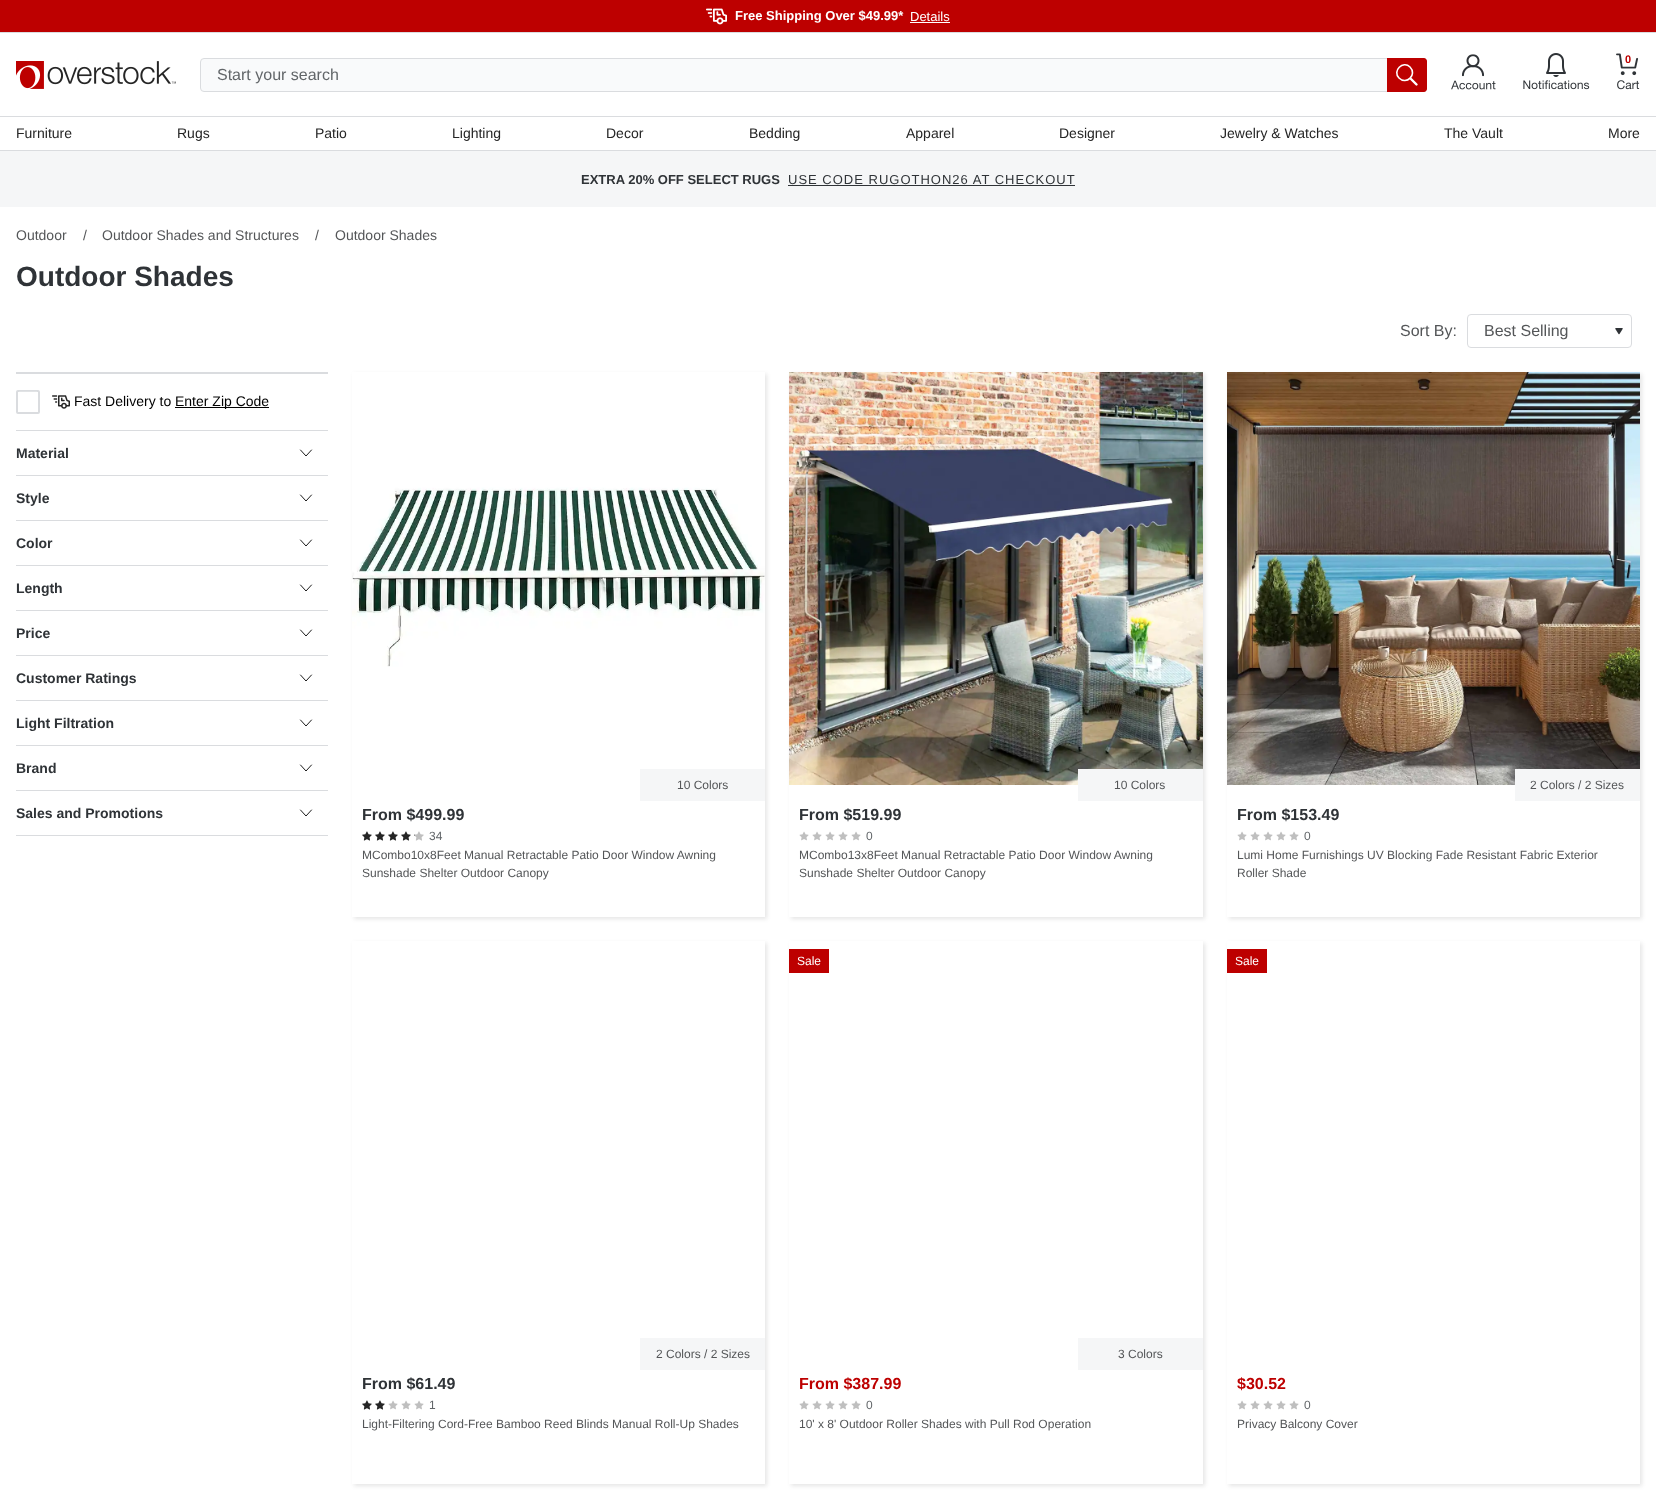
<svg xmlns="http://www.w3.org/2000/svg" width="1656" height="1495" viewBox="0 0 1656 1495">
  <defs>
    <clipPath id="clip1"><path d="M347 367H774V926H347ZM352 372H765V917H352Z" clip-rule="evenodd"/></clipPath>
    <filter id="blur1" x="-50%" y="-200%" width="200%" height="500%"><feGaussianBlur stdDeviation="2"/></filter>
    <clipPath id="clip2"><path d="M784 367H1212V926H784ZM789 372H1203V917H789Z" clip-rule="evenodd"/></clipPath>
    <clipPath id="clip3"><path d="M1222 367H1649V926H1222ZM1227 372H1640V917H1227Z" clip-rule="evenodd"/></clipPath>
    <clipPath id="clip4"><path d="M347 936H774V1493H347ZM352 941H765V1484H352Z" clip-rule="evenodd"/></clipPath>
    <clipPath id="clip5"><path d="M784 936H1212V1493H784ZM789 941H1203V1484H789Z" clip-rule="evenodd"/></clipPath>
    <clipPath id="clip6"><path d="M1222 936H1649V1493H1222ZM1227 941H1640V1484H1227Z" clip-rule="evenodd"/></clipPath>
  </defs>
  <rect width="100%" height="100%" fill="#ffffff"/>
  <rect x="0" y="0" width="1656" height="32" fill="#bd0000"/>
  <image x="706" y="8" width="21" height="17" href="img1.png"/>
  <text x="735" y="20" font-family="Liberation Sans" font-size="13" font-weight="bold" fill="#ffffff">Free Shipping Over $49.99*</text>
  <text x="910" y="21" font-family="Liberation Sans" font-size="13" fill="#ffffff">Details</text>
  <rect x="910" y="22" width="40" height="1" fill="#ffffff"/>
  <rect x="0" y="32" width="1656" height="1" fill="#dadcdf"/>
  <rect x="0" y="116" width="1656" height="1" fill="#dadcdf"/>
  <image x="1451" y="54" width="45" height="36" href="img2.png"/>
  <image x="1523" y="53" width="67" height="37" href="img3.png"/>
  <image x="1616" y="53" width="24" height="37" href="img4.png"/>
  <text x="1625" y="63" font-family="Liberation Sans" font-size="11" font-weight="bold" fill="#bd0000">0</text>
  <image x="16" y="61" width="160" height="28" href="img5.png"/>
  <rect x="200.5" y="58.5" width="1226" height="33" rx="3.5" fill="#f9fafb" stroke="#dadcdf"/>
  <text x="217" y="80" font-family="Liberation Sans" font-size="16" fill="#626669">Start your search</text>
  <path d="M1387 58H1424C1425.5 58 1427 59.5 1427 61V89C1427 90.5 1425.5 92 1424 92H1387Z" fill="#bd0000"/>
  <path d="M1416.5 84.5L1411 79" fill="none" stroke="#ffffff" stroke-width="2.4" stroke-linecap="round"/>
  <path d="M1410 67C1417.5 74.5 1406.5 85.5 1399 78C1392 71 1403 60 1410 67Z" fill="none" stroke="#ffffff" stroke-width="1.6"/>
  <rect x="0" y="150" width="1656" height="1" fill="#dadcdf"/>
  <text x="16" y="138" font-family="Liberation Sans" font-size="14" fill="#252525">Furniture</text>
  <text x="177" y="138" font-family="Liberation Sans" font-size="14" fill="#252525">Rugs</text>
  <text x="315" y="138" font-family="Liberation Sans" font-size="14" fill="#252525">Patio</text>
  <text x="452" y="138" font-family="Liberation Sans" font-size="14" fill="#252525">Lighting</text>
  <text x="606" y="138" font-family="Liberation Sans" font-size="14" fill="#252525">Decor</text>
  <text x="749" y="138" font-family="Liberation Sans" font-size="14" fill="#252525">Bedding</text>
  <text x="906" y="138" font-family="Liberation Sans" font-size="14" fill="#252525">Apparel</text>
  <text x="1059" y="138" font-family="Liberation Sans" font-size="14" fill="#252525">Designer</text>
  <text x="1220" y="138" font-family="Liberation Sans" font-size="14" fill="#252525">Jewelry &amp; Watches</text>
  <text x="1444" y="138" font-family="Liberation Sans" font-size="14" fill="#252525">The Vault</text>
  <text x="1608" y="138" font-family="Liberation Sans" font-size="14" fill="#252525">More</text>
  <rect x="0" y="151" width="1656" height="56" fill="#f5f6f7"/>
  <text x="581" y="184" font-family="Liberation Sans" font-size="13" font-weight="bold" fill="#2f3337">EXTRA 20% OFF SELECT RUGS</text>
  <text x="788" y="184" font-family="Liberation Sans" font-size="13" letter-spacing="1" fill="#2f3337">USE CODE RUGOTHON26 AT CHECKOUT</text>
  <rect x="788" y="185" width="287" height="1" fill="#2f3337"/>
  <text x="16" y="240" font-family="Liberation Sans" font-size="14" fill="#545658">Outdoor</text>
  <text x="83" y="240" font-family="Liberation Sans" font-size="14" fill="#545658">/</text>
  <text x="102" y="240" font-family="Liberation Sans" font-size="14" fill="#545658">Outdoor Shades and Structures</text>
  <text x="315" y="240" font-family="Liberation Sans" font-size="14" fill="#545658">/</text>
  <text x="335" y="240" font-family="Liberation Sans" font-size="14" fill="#545658">Outdoor Shades</text>
  <text x="16" y="286" font-family="Liberation Sans" font-size="28" font-weight="bold" fill="#2f3337">Outdoor Shades</text>
  <text x="1400" y="336" font-family="Liberation Sans" font-size="16" fill="#545658">Sort By:</text>
  <image x="1615" y="328" width="8" height="7" href="img6.png"/>
  <rect x="1467.5" y="314.5" width="164" height="33" rx="3.5" fill="none" stroke="#dadcdf"/>
  <text x="1484" y="336" font-family="Liberation Sans" font-size="16" fill="#545658">Best Selling</text>
  <rect x="16" y="372" width="312" height="2" fill="#dadcdf"/>
  <rect x="16" y="835" width="312" height="1" fill="#dadcdf"/>
  <rect x="17" y="391" width="22" height="22" rx="1" fill="none" stroke="#dadcdf" stroke-width="2"/>
  <rect x="19" y="391" width="18" height="1" fill="#e1e3e5"/>
  <image x="52" y="395" width="18" height="14" href="img7.png"/>
  <text x="74" y="406" font-family="Liberation Sans" font-size="14" fill="#000000">Fast Delivery to</text>
  <rect x="175" y="407" width="94" height="1" fill="#000000"/>
  <text x="175" y="406" font-family="Liberation Sans" font-size="14" fill="#000000">Enter Zip Code</text>
  <rect x="16" y="430" width="312" height="1" fill="#dadcdf"/>
  <text x="16" y="458" font-family="Liberation Sans" font-size="14" font-weight="bold" fill="#2f3337">Material</text>
  <rect x="16" y="475" width="312" height="1" fill="#dadcdf"/>
  <path d="M311.5 450L306 456L300.5 450M311.5 495L306 501L300.5 495" fill="none" stroke="#000000" stroke-width="0.9" stroke-linecap="round"/>
  <text x="16" y="503" font-family="Liberation Sans" font-size="14" font-weight="bold" fill="#2f3337">Style</text>
  <rect x="16" y="520" width="312" height="1" fill="#dadcdf"/>
  <text x="16" y="548" font-family="Liberation Sans" font-size="14" font-weight="bold" fill="#2f3337">Color</text>
  <rect x="16" y="565" width="312" height="1" fill="#dadcdf"/>
  <path d="M311.5 540L306 546L300.5 540M311.5 585L306 591L300.5 585" fill="none" stroke="#000000" stroke-width="0.9" stroke-linecap="round"/>
  <text x="16" y="593" font-family="Liberation Sans" font-size="14" font-weight="bold" fill="#2f3337">Length</text>
  <rect x="16" y="610" width="312" height="1" fill="#dadcdf"/>
  <text x="16" y="638" font-family="Liberation Sans" font-size="14" font-weight="bold" fill="#2f3337">Price</text>
  <rect x="16" y="655" width="312" height="1" fill="#dadcdf"/>
  <path d="M311.5 630L306 636L300.5 630M311.5 675L306 681L300.5 675" fill="none" stroke="#000000" stroke-width="0.9" stroke-linecap="round"/>
  <text x="16" y="683" font-family="Liberation Sans" font-size="14" font-weight="bold" fill="#2f3337">Customer Ratings</text>
  <rect x="16" y="700" width="312" height="1" fill="#dadcdf"/>
  <text x="16" y="728" font-family="Liberation Sans" font-size="14" font-weight="bold" fill="#2f3337">Light Filtration</text>
  <rect x="16" y="745" width="312" height="1" fill="#dadcdf"/>
  <path d="M311.5 720L306 726L300.5 720M311.5 765L306 771L300.5 765" fill="none" stroke="#000000" stroke-width="0.9" stroke-linecap="round"/>
  <text x="16" y="773" font-family="Liberation Sans" font-size="14" font-weight="bold" fill="#2f3337">Brand</text>
  <rect x="16" y="790" width="312" height="1" fill="#dadcdf"/>
  <text x="16" y="818" font-family="Liberation Sans" font-size="14" font-weight="bold" fill="#2f3337">Sales and Promotions</text>
  <path d="M311.5 810L306 816L300.5 810" fill="none" stroke="#000000" stroke-width="0.9" stroke-linecap="round"/>
  <g clip-path="url(#clip1)">
    <rect x="354" y="374" width="413" height="545" fill="#000000" fill-opacity="0.1" filter="url(#blur1)"/>
  </g>
  <image x="352" y="487" width="413" height="180" href="img8.png"/>
  <rect x="640" y="769" width="125" height="32" fill="#f5f6f7"/>
  <text x="677" y="789" font-family="Liberation Sans" font-size="12" fill="#545658">10 Colors</text>
  <text x="362" y="820" font-family="Liberation Sans" font-size="16" font-weight="bold" fill="#2f3337">From $499.99</text>
  <image x="362" y="831" width="10" height="10" href="img9.png"/>
  <image x="375" y="831" width="10" height="10" href="img9.png"/>
  <image x="388" y="831" width="10" height="10" href="img9.png"/>
  <image x="401" y="831" width="10" height="10" href="img9.png"/>
  <image x="414" y="831" width="10" height="10" href="img10.png"/>
  <text x="429" y="840" font-family="Liberation Sans" font-size="12" fill="#626669">34</text>
  <text x="362" y="859" font-family="Liberation Sans" font-size="12" fill="#545658">MCombo10x8Feet Manual Retractable Patio Door Window Awning</text>
  <text x="362" y="877" font-family="Liberation Sans" font-size="12" fill="#545658">Sunshade Shelter Outdoor Canopy</text>
  <g clip-path="url(#clip2)">
    <rect x="791" y="374" width="414" height="545" fill="#000000" fill-opacity="0.1" filter="url(#blur1)"/>
  </g>
  <image x="789" y="372" width="414" height="413" href="img11.png"/>
  <rect x="1078" y="769" width="125" height="32" fill="#f5f6f7"/>
  <text x="1114" y="789" font-family="Liberation Sans" font-size="12" fill="#545658">10 Colors</text>
  <text x="799" y="820" font-family="Liberation Sans" font-size="16" font-weight="bold" fill="#2f3337">From $519.99</text>
  <image x="799" y="831" width="10" height="10" href="img12.png"/>
  <image x="812" y="831" width="10" height="10" href="img12.png"/>
  <image x="825" y="831" width="10" height="10" href="img12.png"/>
  <image x="838" y="831" width="10" height="10" href="img12.png"/>
  <image x="851" y="831" width="10" height="10" href="img12.png"/>
  <text x="866" y="840" font-family="Liberation Sans" font-size="12" fill="#626669">0</text>
  <text x="799" y="859" font-family="Liberation Sans" font-size="12" fill="#545658">MCombo13x8Feet Manual Retractable Patio Door Window Awning</text>
  <text x="799" y="877" font-family="Liberation Sans" font-size="12" fill="#545658">Sunshade Shelter Outdoor Canopy</text>
  <g clip-path="url(#clip3)">
    <rect x="1229" y="374" width="413" height="545" fill="#000000" fill-opacity="0.1" filter="url(#blur1)"/>
  </g>
  <image x="1227" y="372" width="413" height="413" href="img13.png"/>
  <rect x="1515" y="769" width="125" height="32" fill="#f5f6f7"/>
  <text x="1530" y="789" font-family="Liberation Sans" font-size="12" fill="#545658">2 Colors / 2 Sizes</text>
  <text x="1237" y="820" font-family="Liberation Sans" font-size="16" font-weight="bold" fill="#2f3337">From $153.49</text>
  <image x="1237" y="831" width="10" height="10" href="img12.png"/>
  <image x="1250" y="831" width="10" height="10" href="img12.png"/>
  <image x="1263" y="831" width="10" height="10" href="img12.png"/>
  <image x="1276" y="831" width="10" height="10" href="img12.png"/>
  <image x="1289" y="831" width="10" height="10" href="img12.png"/>
  <text x="1304" y="840" font-family="Liberation Sans" font-size="12" fill="#626669">0</text>
  <text x="1237" y="859" font-family="Liberation Sans" font-size="12" fill="#545658">Lumi Home Furnishings UV Blocking Fade Resistant Fabric Exterior</text>
  <text x="1237" y="877" font-family="Liberation Sans" font-size="12" fill="#545658">Roller Shade</text>
  <g clip-path="url(#clip4)">
    <rect x="354" y="943" width="413" height="543" fill="#000000" fill-opacity="0.1" filter="url(#blur1)"/>
  </g>
  <rect x="640" y="1338" width="125" height="32" fill="#f5f6f7"/>
  <text x="656" y="1358" font-family="Liberation Sans" font-size="12" fill="#545658">2 Colors / 2 Sizes</text>
  <text x="362" y="1389" font-family="Liberation Sans" font-size="16" font-weight="bold" fill="#2f3337">From $61.49</text>
  <image x="362" y="1400" width="10" height="10" href="img9.png"/>
  <image x="375" y="1400" width="10" height="10" href="img9.png"/>
  <image x="388" y="1400" width="10" height="10" href="img12.png"/>
  <image x="401" y="1400" width="10" height="10" href="img12.png"/>
  <image x="414" y="1400" width="10" height="10" href="img12.png"/>
  <text x="429" y="1409" font-family="Liberation Sans" font-size="12" fill="#626669">1</text>
  <text x="362" y="1428" font-family="Liberation Sans" font-size="12" fill="#545658">Light-Filtering Cord-Free Bamboo Reed Blinds Manual Roll-Up Shades</text>
  <g clip-path="url(#clip5)">
    <rect x="791" y="943" width="414" height="543" fill="#000000" fill-opacity="0.1" filter="url(#blur1)"/>
  </g>
  <rect x="789" y="949" width="40" height="24" fill="#bd0000"/>
  <text x="797" y="965" font-family="Liberation Sans" font-size="12" fill="#ffffff">Sale</text>
  <text x="799" y="1389" font-family="Liberation Sans" font-size="16" font-weight="bold" fill="#bd0000">From $387.99</text>
  <image x="799" y="1400" width="10" height="10" href="img12.png"/>
  <image x="812" y="1400" width="10" height="10" href="img12.png"/>
  <image x="825" y="1400" width="10" height="10" href="img12.png"/>
  <image x="838" y="1400" width="10" height="10" href="img12.png"/>
  <image x="851" y="1400" width="10" height="10" href="img12.png"/>
  <text x="866" y="1409" font-family="Liberation Sans" font-size="12" fill="#626669">0</text>
  <text x="799" y="1428" font-family="Liberation Sans" font-size="12" fill="#545658">10' x 8' Outdoor Roller Shades with Pull Rod Operation</text>
  <rect x="1078" y="1338" width="125" height="32" fill="#f5f6f7"/>
  <text x="1118" y="1358" font-family="Liberation Sans" font-size="12" fill="#545658">3 Colors</text>
  <g clip-path="url(#clip6)">
    <rect x="1229" y="943" width="413" height="543" fill="#000000" fill-opacity="0.1" filter="url(#blur1)"/>
  </g>
  <rect x="1227" y="949" width="40" height="24" fill="#bd0000"/>
  <text x="1235" y="965" font-family="Liberation Sans" font-size="12" fill="#ffffff">Sale</text>
  <text x="1237" y="1389" font-family="Liberation Sans" font-size="16" font-weight="bold" fill="#bd0000">$30.52</text>
  <image x="1237" y="1400" width="10" height="10" href="img12.png"/>
  <image x="1250" y="1400" width="10" height="10" href="img12.png"/>
  <image x="1263" y="1400" width="10" height="10" href="img12.png"/>
  <image x="1276" y="1400" width="10" height="10" href="img12.png"/>
  <image x="1289" y="1400" width="10" height="10" href="img12.png"/>
  <text x="1304" y="1409" font-family="Liberation Sans" font-size="12" fill="#626669">0</text>
  <text x="1237" y="1428" font-family="Liberation Sans" font-size="12" fill="#545658">Privacy Balcony Cover</text>
</svg>
